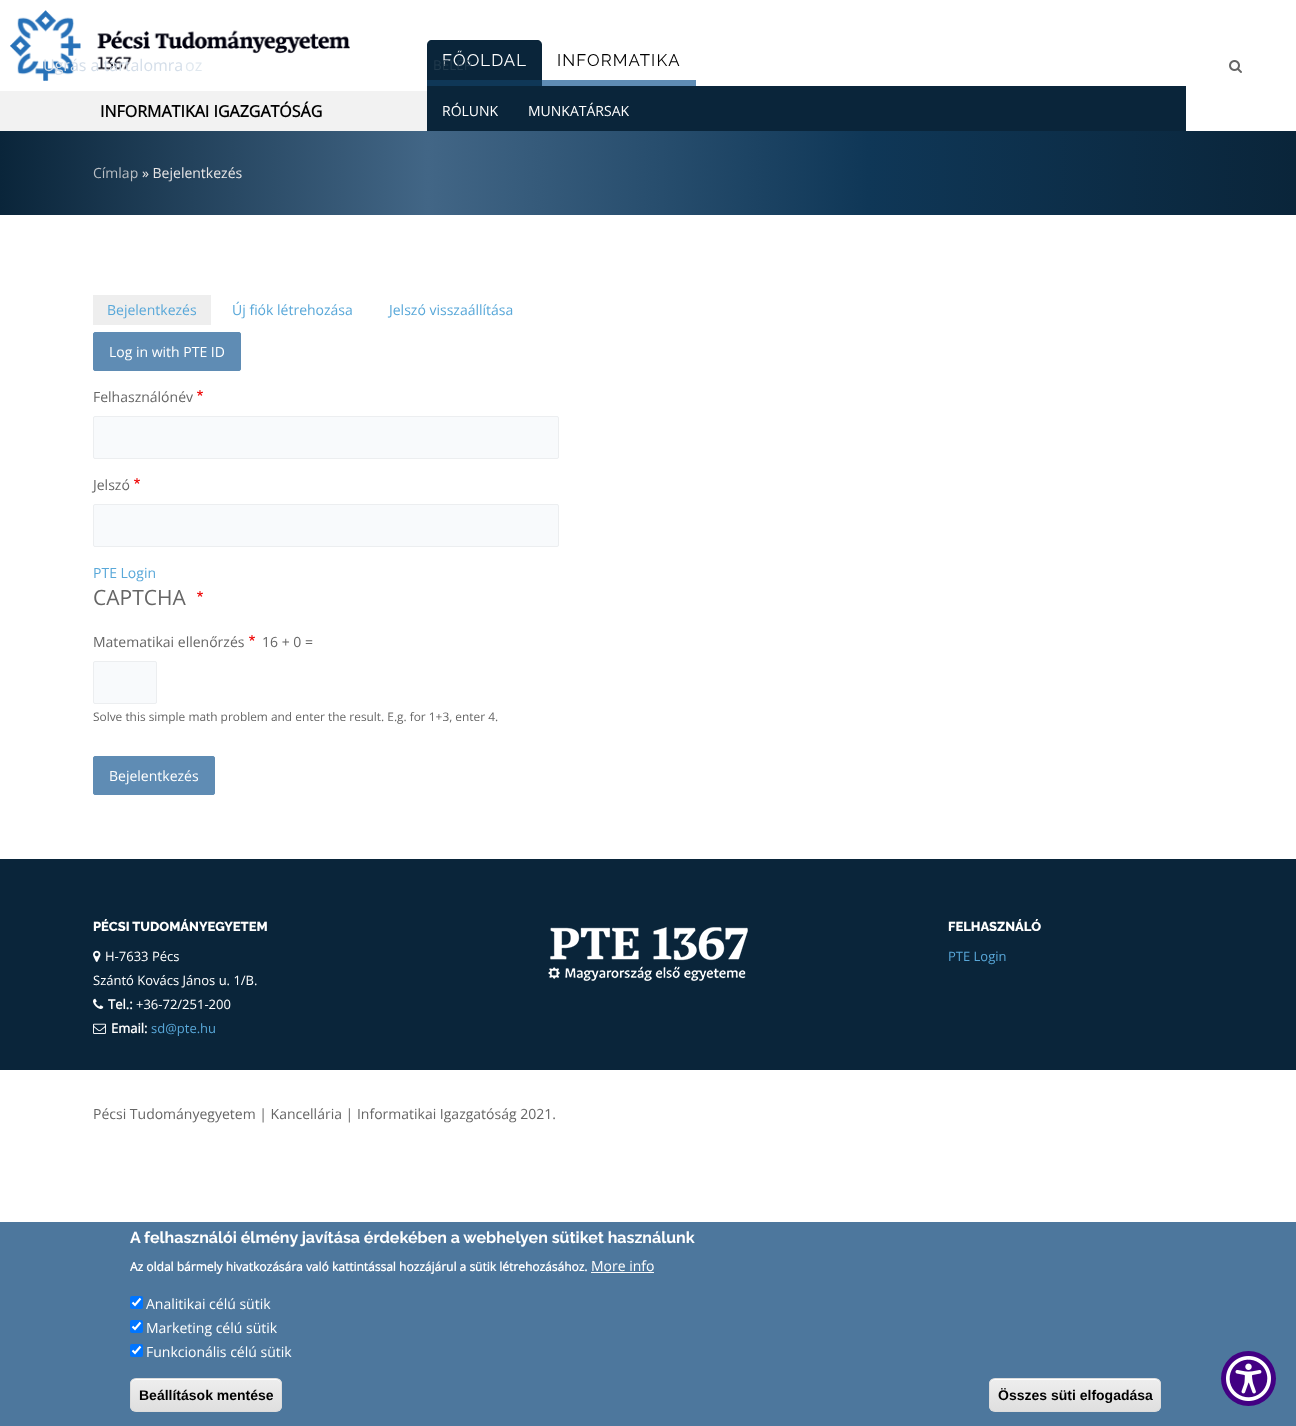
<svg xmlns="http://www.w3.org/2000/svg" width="1296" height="1426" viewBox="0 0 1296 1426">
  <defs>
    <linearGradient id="g1" gradientUnits="userSpaceOnUse" x1="0" y1="713" x2="1296" y2="713"><stop offset="0" stop-color="#0a253a"/><stop offset="0.33" stop-color="#426686"/><stop offset="0.67" stop-color="#0f3757"/><stop offset="1" stop-color="#0a253a"/></linearGradient>
    <clipPath id="clip1"><rect x="130" y="1378" width="152" height="34" rx="6"/></clipPath>
    <linearGradient id="g2" gradientUnits="userSpaceOnUse" x1="206" y1="1379" x2="206" y2="1411"><stop offset="0.05" stop-color="#ededed"/><stop offset="1" stop-color="#dfdfdf"/></linearGradient>
    <clipPath id="clip2"><rect x="989" y="1378" width="172" height="34" rx="6"/></clipPath>
    <linearGradient id="g3" gradientUnits="userSpaceOnUse" x1="1075" y1="1379" x2="1075" y2="1411"><stop offset="0.05" stop-color="#ededed"/><stop offset="1" stop-color="#dfdfdf"/></linearGradient>
  </defs>
  <rect width="100%" height="100%" fill="#ffffff"/>
  <path d="M432 40H537C540 40 542 42 542 45V86H427V45C427 42 429 40 432 40Z" fill="#0a253a"/>
  <rect x="427" y="80" width="115" height="6" fill="#0f3757"/>
  <text x="442" y="66" font-family="Raleway" font-size="16.75" letter-spacing="1.1" fill="#ffffff">FŐOLDAL</text>
  <rect x="542" y="80" width="154" height="6" fill="#5f8cb4"/>
  <text x="557" y="66" font-family="Raleway" font-size="16.75" letter-spacing="1.1" fill="#000000">INFORMATIKA</text>
  <rect x="427" y="86" width="759" height="45" fill="#0a253a"/>
  <text x="442" y="116" font-family="Open Sans" font-size="14" fill="#ffffff">RÓLUNK</text>
  <text x="528" y="116" font-family="Open Sans" font-size="14" fill="#ffffff">MUNKATÁRSAK</text>
  <image x="1229" y="60" width="13" height="13" href="img1.png"/>
  <image x="10" y="10" width="340" height="71" href="img2.png"/>
  <rect x="0" y="91" width="427" height="40" fill="#f2f2f2"/>
  <text x="100" y="117" font-family="Open Sans" font-size="16" font-weight="bold" fill="#000000">INFORMATIKAI IGAZGATÓSÁG</text>
  <rect x="0" y="131" width="1296" height="84" fill="url(#g1)"/>
  <text x="93" y="178" font-family="Open Sans" font-size="14" fill="#b9bec3">Címlap</text>
  <text x="142" y="178" font-family="Open Sans" font-size="14" fill="#e8e6e6">» Bejelentkezés</text>
  <rect x="93" y="295" width="118" height="30" fill="#eeeeee"/>
  <text x="107" y="315" font-family="Open Sans" font-size="14" fill="#59a8d9">Bejelentkezés</text>
  <text x="232" y="315" font-family="Open Sans" font-size="14" fill="#59a8d9">Új fiók létrehozása</text>
  <text x="389" y="315" font-family="Open Sans" font-size="14" fill="#59a8d9">Jelszó visszaállítása</text>
  <rect x="93.5" y="332.5" width="147" height="38" rx="1.5" fill="#5f8cb4" stroke="#5f8cb4"/>
  <text x="109" y="357" font-family="Open Sans" font-size="14" fill="#ffffff">Log in with PTE ID</text>
  <text x="93" y="402" font-family="Open Sans" font-size="14" fill="#666666">Felhasználónév</text>
  <image x="197" y="390" width="6" height="6" href="img3.png"/>
  <rect x="93.5" y="416.5" width="465" height="42" rx="1.5" fill="#f8fafc" stroke="#eceef0"/>
  <text x="93" y="490" font-family="Open Sans" font-size="14" fill="#666666">Jelszó</text>
  <image x="134" y="478" width="6" height="6" href="img3.png"/>
  <rect x="93.5" y="504.5" width="465" height="42" rx="1.5" fill="#f8fafc" stroke="#eceef0"/>
  <text x="93" y="578" font-family="Open Sans" font-size="14" fill="#59a8d9">PTE Login</text>
  <text x="93" y="605" font-family="Open Sans" font-size="21" fill="#666666">CAPTCHA</text>
  <image x="197" y="591" width="6" height="6" href="img3.png"/>
  <text x="93" y="647" font-family="Open Sans" font-size="14" fill="#666666">Matematikai ellenőrzés</text>
  <image x="249" y="635" width="6" height="6" href="img3.png"/>
  <text x="262" y="647" font-family="Open Sans" font-size="14" fill="#666666">16 + 0 =</text>
  <rect x="93.5" y="661.5" width="63" height="42" rx="1.5" fill="#f8fafc" stroke="#eceef0"/>
  <text x="93" y="721" font-family="Open Sans" font-size="11.9" fill="#666666">Solve this simple math problem and enter the result. E.g. for 1+3, enter 4.</text>
  <rect x="93.5" y="756.5" width="121" height="38" rx="1.5" fill="#5f8cb4" stroke="#5f8cb4"/>
  <text x="109" y="781" font-family="Open Sans" font-size="14" fill="#ffffff">Bejelentkezés</text>
  <rect x="0" y="859" width="1296" height="211" fill="#0a253a"/>
  <text x="93" y="931" font-family="Raleway" font-size="13" font-weight="800" fill="#ffffff">PÉCSI TUDOMÁNYEGYETEM</text>
  <image x="93" y="950" width="8" height="12" href="img4.png"/>
  <text x="105" y="961" font-family="Open Sans" font-size="13" fill="#ffffff">H-7633 Pécs</text>
  <text x="93" y="985" font-family="Open Sans" font-size="13" fill="#ffffff">Szántó Kovács János u. 1/B.</text>
  <image x="93" y="998" width="11" height="11" href="img5.png"/>
  <text x="108" y="1009" font-family="Open Sans" font-size="13" font-weight="bold" fill="#ffffff">Tel.:</text>
  <text x="136" y="1009" font-family="Open Sans" font-size="13" fill="#ffffff">+36-72/251-200</text>
  <image x="93" y="1023" width="13" height="11" href="img6.png"/>
  <text x="111" y="1033" font-family="Open Sans" font-size="13" font-weight="bold" fill="#ffffff">Email:</text>
  <text x="151" y="1033" font-family="Open Sans" font-size="13" fill="#59a8d9">sd@pte.hu</text>
  <image x="548" y="927" width="200" height="54" href="img7.png"/>
  <text x="948" y="931" font-family="Raleway" font-size="13" font-weight="800" fill="#ffffff">FELHASZNÁLÓ</text>
  <text x="948" y="961" font-family="Open Sans" font-size="13" fill="#59a8d9">PTE Login</text>
  <text x="93" y="1119" font-family="Open Sans" font-size="14" fill="#666666">Pécsi Tudományegyetem | Kancellária | Informatikai Igazgatóság 2021.</text>
  <text x="43" y="71" font-family="Open Sans" font-size="16" fill="#d4dee9">Ugrás a tartalomra</text>
  <text x="185" y="71" font-family="Open Sans" font-size="16" fill="#e0e8ef">oz</text>
  <text x="433" y="70" font-family="Open Sans" font-size="13.5" fill="#20394c">BELÉP</text>
  <rect x="0" y="1222" width="1296" height="204" fill="#4d779d"/>
  <circle cx="1248.5" cy="1378.5" r="27.5" fill="#420083"/>
  <image x="1226" y="1356" width="45" height="45" href="img8.png"/>
  <text x="130" y="1243" font-family="Raleway" font-size="16" font-weight="bold" fill="#ffffff">A felhasználói élmény javítása érdekében a webhelyen sütiket használunk</text>
  <text x="130" y="1271" font-family="Open Sans" font-size="12" font-weight="bold" fill="#ffffff">Az oldal bármely hivatkozására való kattintással hozzájárul a sütik létrehozásához.</text>
  <text x="591" y="1271" font-family="Open Sans" font-size="14" fill="#ffffff">More info</text>
  <rect x="591" y="1272" width="63" height="1" fill="#ffffff"/>
  <rect x="130" y="1296" width="13" height="13" rx="2" fill="#0075ff"/>
  <path d="M132.5 1302.5L135 1305L140.5 1298.5" fill="none" stroke="#ffffff" stroke-width="2.1"/>
  <text x="146" y="1309" font-family="Open Sans" font-size="14" fill="#ffffff">Analitikai célú sütik</text>
  <rect x="130" y="1320" width="13" height="13" rx="2" fill="#0075ff"/>
  <path d="M132.5 1326.5L135 1329L140.5 1322.5" fill="none" stroke="#ffffff" stroke-width="2.1"/>
  <text x="146" y="1333" font-family="Open Sans" font-size="14" fill="#ffffff">Marketing célú sütik</text>
  <rect x="130" y="1344" width="13" height="13" rx="2" fill="#0075ff"/>
  <path d="M132.5 1350.5L135 1353L140.5 1346.5" fill="none" stroke="#ffffff" stroke-width="2.1"/>
  <text x="146" y="1357" font-family="Open Sans" font-size="14" fill="#ffffff">Funkcionális célú sütik</text>
  <g clip-path="url(#clip1)">
    <rect x="130" y="1379" width="152" height="32" fill="url(#g2)"/>
  </g>
  <path d="M136 1380H276C279 1380 281 1382 281 1385V1384C281 1381 279 1379 276 1379H136C133 1379 131 1381 131 1384V1385C131 1382 133 1380 136 1380Z" fill="#ffffff"/>
  <rect x="130.5" y="1378.5" width="151" height="33" rx="5.5" fill="none" stroke="#dcdcdc"/>
  <text x="139" y="1400" font-family="Liberation Sans" font-size="14" font-weight="bold" fill="#000000">Beállítások mentése</text>
  <g clip-path="url(#clip2)">
    <rect x="989" y="1379" width="172" height="32" fill="url(#g3)"/>
  </g>
  <path d="M995 1380H1155C1158 1380 1160 1382 1160 1385V1384C1160 1381 1158 1379 1155 1379H995C992 1379 990 1381 990 1384V1385C990 1382 992 1380 995 1380Z" fill="#ffffff"/>
  <rect x="989.5" y="1378.5" width="171" height="33" rx="5.5" fill="none" stroke="#dcdcdc"/>
  <text x="998" y="1400" font-family="Liberation Sans" font-size="14" font-weight="bold" fill="#000000">Összes süti elfogadása</text>
</svg>
